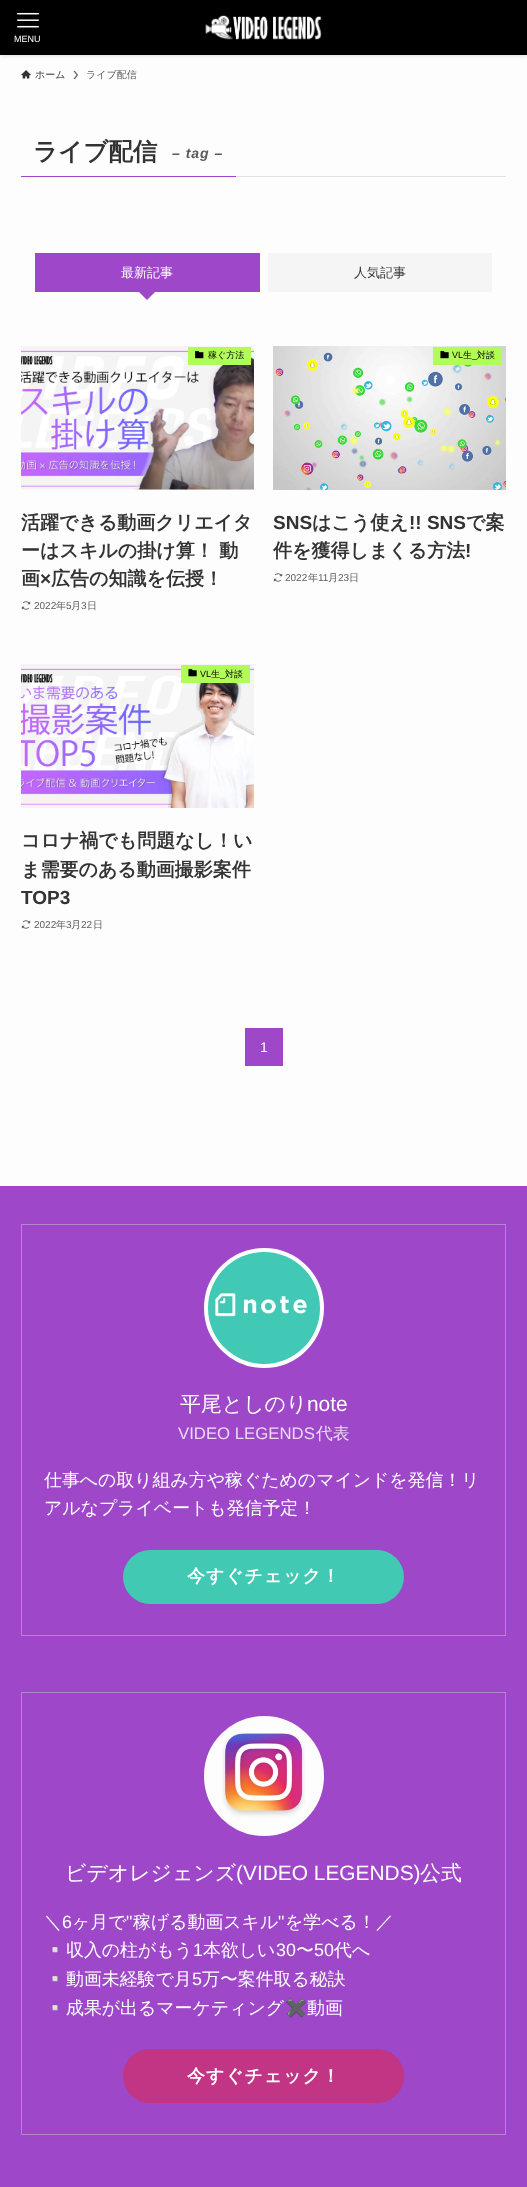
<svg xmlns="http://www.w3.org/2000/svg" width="527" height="2187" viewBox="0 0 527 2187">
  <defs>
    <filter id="blur1" x="-50%" y="-200%" width="200%" height="500%"><feGaussianBlur stdDeviation="2"/></filter>
  </defs>
  <rect width="100%" height="100%" fill="#fdfdfd"/>
  <rect x="0" y="1" width="527" height="55" fill="#000000" fill-opacity="0.12" filter="url(#blur1)"/>
  <rect x="0" y="0" width="527" height="55" fill="#000000"/>
  <image x="17" y="12" width="22" height="16" href="img1.png"/>
  <text x="14" y="42" font-family="Liberation Sans" font-size="9" fill="#ffffff">MENU</text>
  <image x="205" y="15" width="117" height="25" href="img2.png"/>
  <image x="21" y="70" width="10" height="9" href="img3.png"/>
  <text x="35" y="78" font-family="WenQuanYi Zen Hei" font-size="10" font-weight="500" fill="#333333">ホーム</text>
  <path d="M75 71H73.5L76.5 75L73.5 79H75L78 75Z" fill="#5b5b5b"/>
  <text x="86" y="78" font-family="WenQuanYi Zen Hei" font-size="10" font-weight="500" fill="#5b5b5b">ライブ配信</text>
  <rect x="236" y="176" width="270" height="1" fill="#e2e2e2"/>
  <rect x="21" y="176" width="215" height="1" fill="#9e47c9"/>
  <text x="33" y="160" font-family="WenQuanYi Zen Hei" font-size="24.5" font-weight="bold" fill="#333333">ライブ配信</text>
  <text x="172" y="158" font-family="Liberation Sans" font-size="14" font-weight="bold" font-style="italic" letter-spacing="1" fill="#5b5b5b">– tag –</text>
  <rect x="35" y="253" width="225" height="39" fill="#9e47c9"/>
  <text x="121" y="277" font-family="WenQuanYi Zen Hei" font-size="13" font-weight="500" fill="#ffffff">最新記事</text>
  <path d="M139 292H155L147 300Z" fill="#9e47c9"/>
  <rect x="268" y="253" width="224" height="39" fill="#f5f5f5"/>
  <text x="354" y="277" font-family="WenQuanYi Zen Hei" font-size="13" font-weight="500" fill="#333333">人気記事</text>
  <image x="21" y="346" width="233" height="144" href="img4.png"/>
  <rect x="188" y="347" width="63" height="18" fill="#b2fc58"/>
  <image x="195" y="351" width="9" height="8" href="img5.png"/>
  <text x="208" y="358" font-family="WenQuanYi Zen Hei" font-size="9" font-weight="500" fill="#000000">稼ぐ方法</text>
  <text x="21" y="529" font-family="WenQuanYi Zen Hei" font-size="19" font-weight="bold" fill="#333333">活躍できる動画クリエイタ</text>
  <text x="21" y="557" font-family="WenQuanYi Zen Hei" font-size="19" font-weight="bold" fill="#333333">ーはスキルの掛け算！ 動</text>
  <text x="21" y="585" font-family="WenQuanYi Zen Hei" font-size="19" font-weight="bold" fill="#333333">画</text>
  <text x="40" y="585" font-family="Liberation Sans" font-size="19" font-weight="bold" fill="#333333">×</text>
  <text x="51" y="585" font-family="WenQuanYi Zen Hei" font-size="19" font-weight="bold" fill="#333333">広告の知識を伝授！</text>
  <image x="21" y="601" width="10" height="9" href="img6.png"/>
  <text x="34" y="609" font-family="Liberation Sans" font-size="10" fill="#5b5b5b">2022</text>
  <text x="56" y="609" font-family="WenQuanYi Zen Hei" font-size="10" font-weight="500" fill="#5b5b5b">年</text>
  <text x="66" y="609" font-family="Liberation Sans" font-size="10" fill="#5b5b5b">5</text>
  <text x="71" y="609" font-family="WenQuanYi Zen Hei" font-size="10" font-weight="500" fill="#5b5b5b">月</text>
  <text x="81" y="609" font-family="Liberation Sans" font-size="10" fill="#5b5b5b">3</text>
  <text x="87" y="609" font-family="WenQuanYi Zen Hei" font-size="10" font-weight="500" fill="#5b5b5b">日</text>
  <image x="273" y="346" width="233" height="144" href="img7.png"/>
  <rect x="433" y="347" width="69" height="18" fill="#b2fc58"/>
  <image x="440" y="351" width="9" height="8" href="img8.png"/>
  <text x="452" y="358" font-family="Liberation Sans" font-size="9" fill="#000000">VL</text>
  <text x="463" y="358" font-family="WenQuanYi Zen Hei" font-size="9" font-weight="500" fill="#000000">生</text>
  <text x="472" y="358" font-family="Liberation Sans" font-size="9" fill="#000000">_</text>
  <text x="477" y="358" font-family="WenQuanYi Zen Hei" font-size="9" font-weight="500" fill="#000000">対談</text>
  <text x="273" y="529" font-family="Liberation Sans" font-size="19" font-weight="bold" fill="#333333">SNS</text>
  <text x="312" y="529" font-family="WenQuanYi Zen Hei" font-size="19" font-weight="bold" fill="#333333">はこう使え</text>
  <text x="409" y="529" font-family="Liberation Sans" font-size="19" font-weight="bold" fill="#333333">!! SNS</text>
  <text x="466" y="529" font-family="WenQuanYi Zen Hei" font-size="19" font-weight="bold" fill="#333333">で案</text>
  <text x="273" y="557" font-family="WenQuanYi Zen Hei" font-size="19" font-weight="bold" fill="#333333">件を獲得しまくる方法</text>
  <text x="465" y="557" font-family="Liberation Sans" font-size="19" font-weight="bold" fill="#333333">!</text>
  <image x="273" y="573" width="10" height="9" href="img6.png"/>
  <text x="285" y="581" font-family="Liberation Sans" font-size="10" fill="#5b5b5b">2022</text>
  <text x="308" y="581" font-family="WenQuanYi Zen Hei" font-size="10" font-weight="500" fill="#5b5b5b">年</text>
  <text x="318" y="581" font-family="Liberation Sans" font-size="10" fill="#5b5b5b">11</text>
  <text x="328" y="581" font-family="WenQuanYi Zen Hei" font-size="10" font-weight="500" fill="#5b5b5b">月</text>
  <text x="338" y="581" font-family="Liberation Sans" font-size="10" fill="#5b5b5b">23</text>
  <text x="349" y="581" font-family="WenQuanYi Zen Hei" font-size="10" font-weight="500" fill="#5b5b5b">日</text>
  <image x="21" y="664" width="233" height="144" href="img9.png"/>
  <rect x="181" y="665" width="69" height="18" fill="#b2fc58"/>
  <image x="188" y="669" width="9" height="8" href="img10.png"/>
  <text x="200" y="677" font-family="Liberation Sans" font-size="9" fill="#000000">VL</text>
  <text x="211" y="677" font-family="WenQuanYi Zen Hei" font-size="9" font-weight="500" fill="#000000">生</text>
  <text x="220" y="677" font-family="Liberation Sans" font-size="9" fill="#000000">_</text>
  <text x="225" y="677" font-family="WenQuanYi Zen Hei" font-size="9" font-weight="500" fill="#000000">対談</text>
  <text x="21" y="847" font-family="WenQuanYi Zen Hei" font-size="19" font-weight="bold" fill="#333333">コロナ禍でも問題なし！い</text>
  <text x="21" y="876" font-family="WenQuanYi Zen Hei" font-size="19" font-weight="bold" fill="#333333">ま需要のある動画撮影案件</text>
  <text x="21" y="904" font-family="Liberation Sans" font-size="19" font-weight="bold" fill="#333333">TOP3</text>
  <image x="21" y="920" width="10" height="9" href="img6.png"/>
  <text x="34" y="928" font-family="Liberation Sans" font-size="10" fill="#5b5b5b">2022</text>
  <text x="56" y="928" font-family="WenQuanYi Zen Hei" font-size="10" font-weight="500" fill="#5b5b5b">年</text>
  <text x="66" y="928" font-family="Liberation Sans" font-size="10" fill="#5b5b5b">3</text>
  <text x="71" y="928" font-family="WenQuanYi Zen Hei" font-size="10" font-weight="500" fill="#5b5b5b">月</text>
  <text x="81" y="928" font-family="Liberation Sans" font-size="10" fill="#5b5b5b">22</text>
  <text x="93" y="928" font-family="WenQuanYi Zen Hei" font-size="10" font-weight="500" fill="#5b5b5b">日</text>
  <rect x="245" y="1028" width="38" height="38" fill="#9e47c9"/>
  <text x="260" y="1052" font-family="Liberation Sans" font-size="14" fill="#ffffff">1</text>
  <rect x="0" y="1186" width="527" height="1001" fill="#9e47c9"/>
  <rect x="21.5" y="1224.5" width="484" height="411" fill="none" stroke="#b387c8"/>
  <circle cx="264" cy="1308" r="58" fill="#fdfdfd" stroke="#fdfdfd" stroke-width="4"/>
  <image x="208" y="1252" width="112" height="112" href="img11.png"/>
  <text x="180" y="1411" font-family="WenQuanYi Zen Hei" font-size="20.9" font-weight="500" fill="#ffffff">平尾としのり</text>
  <text x="307" y="1411" font-family="Liberation Sans" font-size="20.9" fill="#ffffff">note</text>
  <text x="178" y="1439" font-family="Liberation Sans" font-size="16.75" fill="#ecdaf4">VIDEO LEGENDS</text>
  <text x="316" y="1439" font-family="WenQuanYi Zen Hei" font-size="16.75" font-weight="500" fill="#ecdaf4">代表</text>
  <text x="44" y="1486" font-family="WenQuanYi Zen Hei" font-size="17.9" font-weight="500" fill="#ffffff">仕事への取り組み方や稼ぐためのマインドを発信！リ</text>
  <text x="44" y="1514" font-family="WenQuanYi Zen Hei" font-size="17.9" font-weight="500" fill="#ffffff">アルなプライベートも発信予定！</text>
  <rect x="123" y="1550" width="281" height="54" rx="27" fill="#41c9b4"/>
  <text x="187" y="1582" font-family="WenQuanYi Zen Hei" font-size="17.9" font-weight="bold" letter-spacing="1" fill="#ffffff">今すぐチェック！</text>
  <rect x="21.5" y="1692.5" width="484" height="442" fill="none" stroke="#b387c8"/>
  <circle cx="264" cy="1776" r="58" fill="#fdfdfd" stroke="#fdfdfd" stroke-width="4"/>
  <image x="222" y="1733" width="83" height="85" href="img12.png"/>
  <text x="65" y="1880" font-family="WenQuanYi Zen Hei" font-size="20.9" font-weight="500" fill="#ffffff">ビデオレジェンズ</text>
  <text x="236" y="1880" font-family="Liberation Sans" font-size="20.9" fill="#ffffff">(VIDEO LEGENDS)</text>
  <text x="420" y="1880" font-family="WenQuanYi Zen Hei" font-size="20.9" font-weight="500" fill="#ffffff">公式</text>
  <text x="44" y="1928" font-family="WenQuanYi Zen Hei" font-size="17.9" font-weight="500" fill="#ffffff">＼</text>
  <text x="62" y="1928" font-family="Liberation Sans" font-size="17.9" fill="#ffffff">6</text>
  <text x="72" y="1928" font-family="WenQuanYi Zen Hei" font-size="17.9" font-weight="500" fill="#ffffff">ヶ月で</text>
  <text x="126" y="1928" font-family="Liberation Sans" font-size="17.9" fill="#ffffff">"</text>
  <text x="133" y="1928" font-family="WenQuanYi Zen Hei" font-size="17.9" font-weight="500" fill="#ffffff">稼げる動画スキル</text>
  <text x="278" y="1928" font-family="Liberation Sans" font-size="17.9" fill="#ffffff">"</text>
  <text x="285" y="1928" font-family="WenQuanYi Zen Hei" font-size="17.9" font-weight="500" fill="#ffffff">を学べる！／</text>
  <text x="44" y="1956" font-family="Noto Color Emoji" font-size="17.9" fill="#ffffff">▫️</text>
  <text x="66" y="1956" font-family="WenQuanYi Zen Hei" font-size="17.9" font-weight="500" fill="#ffffff">収入の柱がもう</text>
  <text x="193" y="1956" font-family="Liberation Sans" font-size="17.9" fill="#ffffff">1</text>
  <text x="203" y="1956" font-family="WenQuanYi Zen Hei" font-size="17.9" font-weight="500" fill="#ffffff">本欲しい</text>
  <text x="276" y="1956" font-family="Liberation Sans" font-size="17.9" fill="#ffffff">30</text>
  <text x="296" y="1956" font-family="WenQuanYi Zen Hei" font-size="17.9" font-weight="500" fill="#ffffff">〜</text>
  <text x="314" y="1956" font-family="Liberation Sans" font-size="17.9" fill="#ffffff">50</text>
  <text x="334" y="1956" font-family="WenQuanYi Zen Hei" font-size="17.9" font-weight="500" fill="#ffffff">代へ</text>
  <text x="44" y="1985" font-family="Noto Color Emoji" font-size="17.9" fill="#ffffff">▫️</text>
  <text x="66" y="1985" font-family="WenQuanYi Zen Hei" font-size="17.9" font-weight="500" fill="#ffffff">動画未経験で月</text>
  <text x="192" y="1985" font-family="Liberation Sans" font-size="17.9" fill="#ffffff">5</text>
  <text x="202" y="1985" font-family="WenQuanYi Zen Hei" font-size="17.9" font-weight="500" fill="#ffffff">万〜案件取る秘訣</text>
  <text x="44" y="2014" font-family="Noto Color Emoji" font-size="17.9" fill="#ffffff">▫️</text>
  <text x="66" y="2014" font-family="WenQuanYi Zen Hei" font-size="17.9" font-weight="500" fill="#ffffff">成果が出るマーケティング</text>
  <text x="285" y="2014" font-family="Noto Color Emoji" font-size="17.9" fill="#ffffff">✖️</text>
  <text x="307" y="2014" font-family="WenQuanYi Zen Hei" font-size="17.9" font-weight="500" fill="#ffffff">動画</text>
  <rect x="123" y="2049" width="281" height="54" rx="27" fill="#c13584"/>
  <text x="187" y="2082" font-family="WenQuanYi Zen Hei" font-size="17.9" font-weight="bold" letter-spacing="1" fill="#ffffff">今すぐチェック！</text>
</svg>
